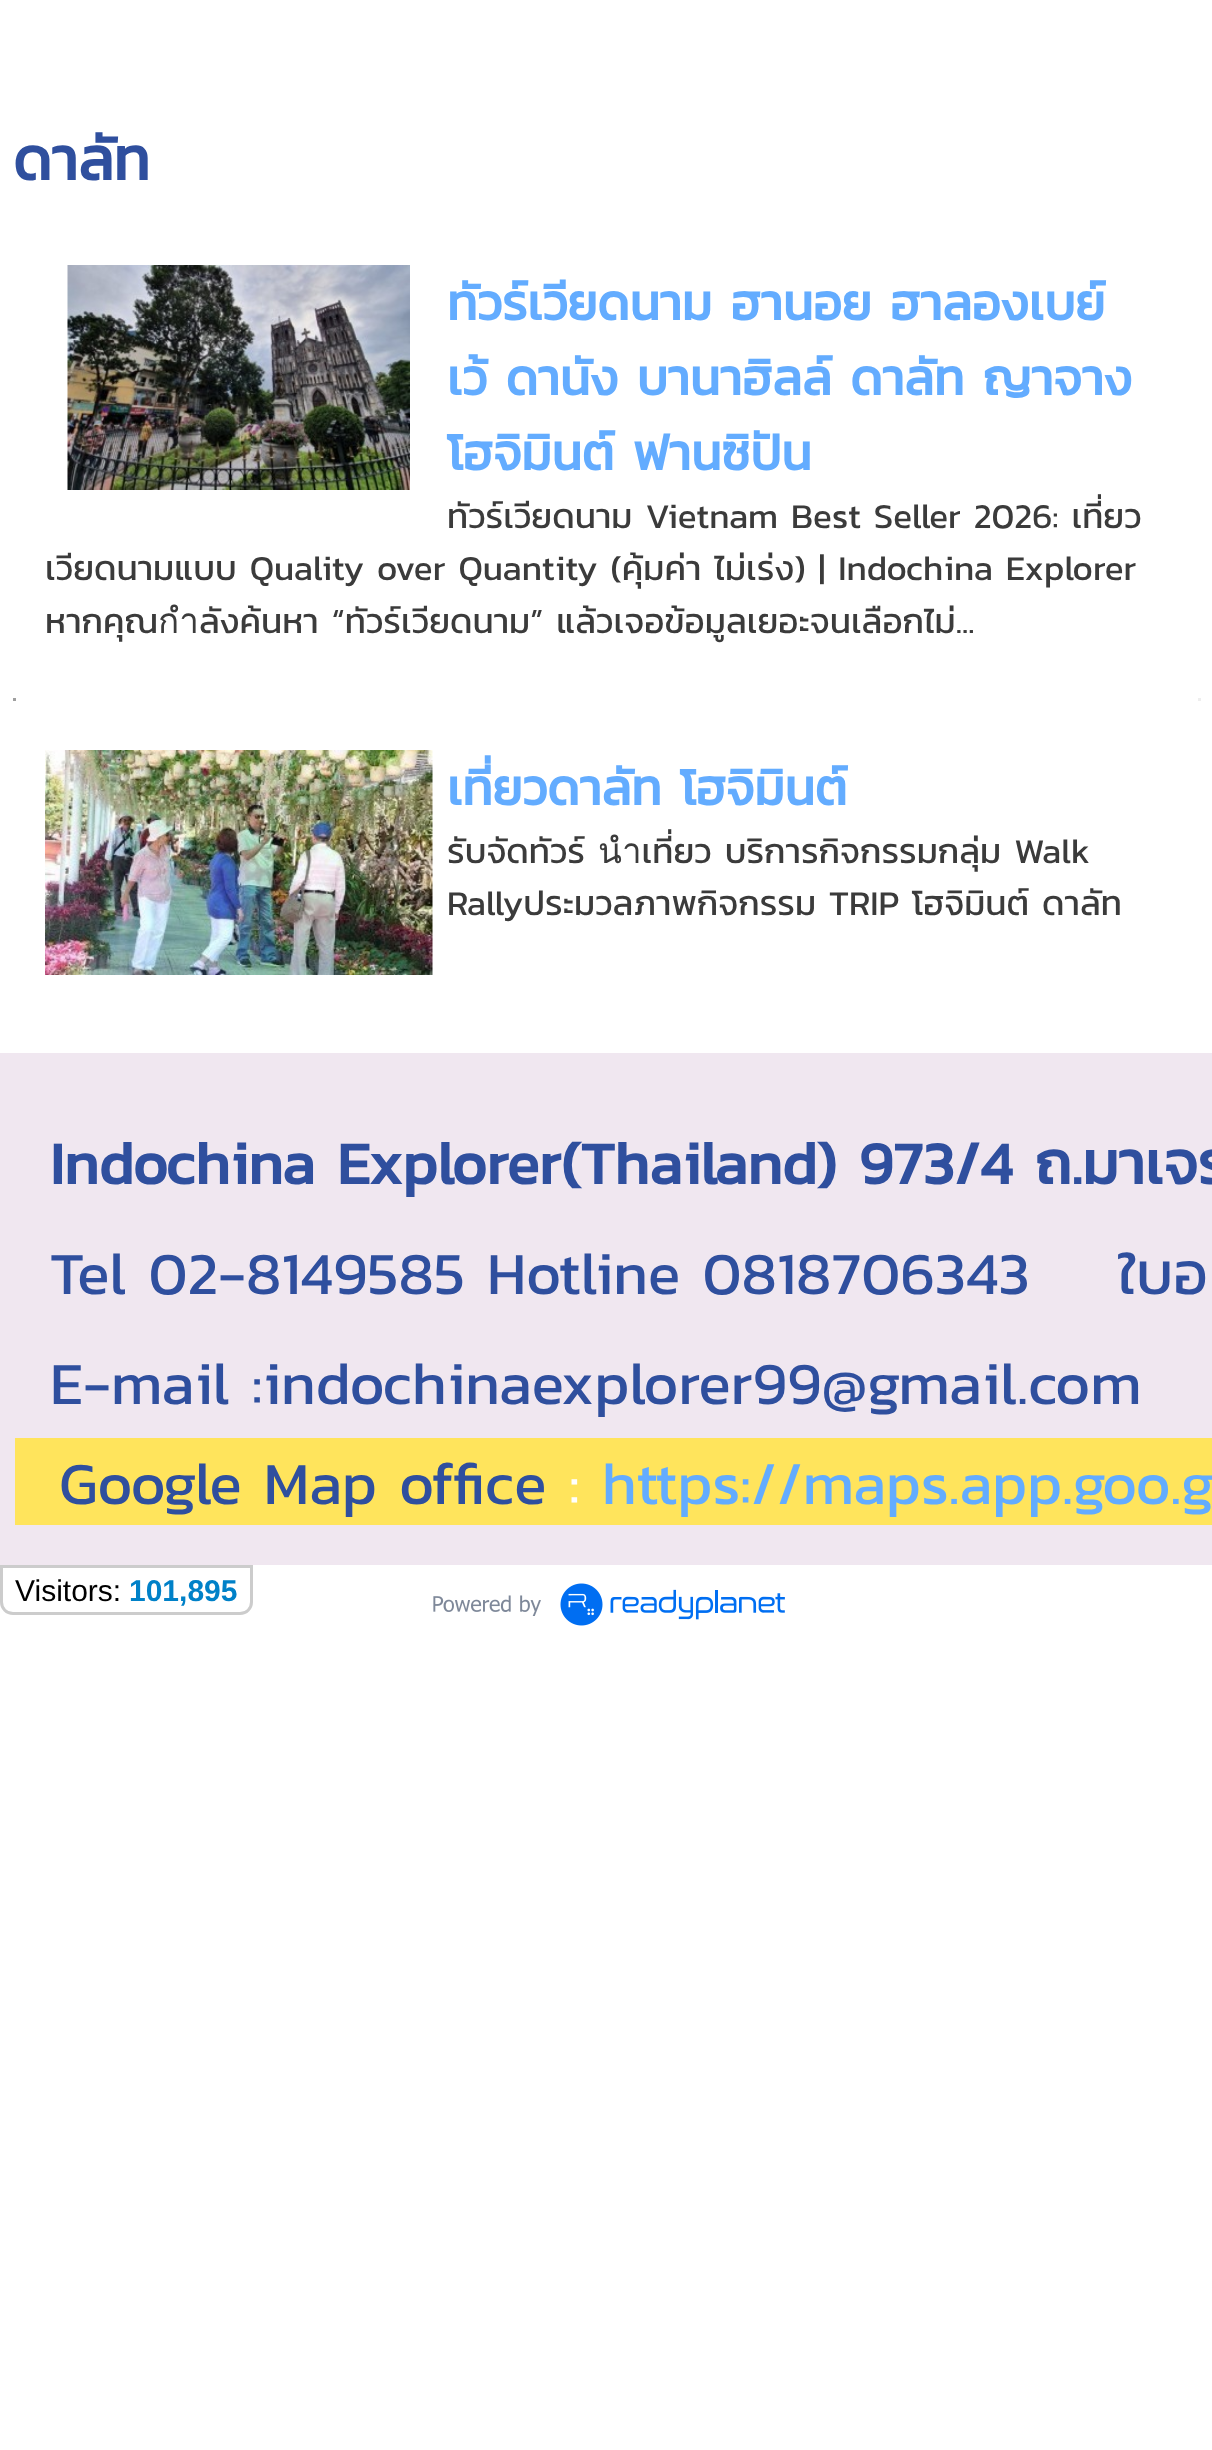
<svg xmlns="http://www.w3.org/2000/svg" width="1212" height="2450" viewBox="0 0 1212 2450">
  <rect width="100%" height="100%" fill="#ffffff"/>
  <text x="13" y="180" font-family="Kanit" font-size="60" font-weight="bold" fill="#2f4f9e">ดาลัท</text>
  <image x="67" y="265" width="343" height="225" href="img1.png"/>
  <text x="447" y="320" font-family="Kanit" font-size="50" font-weight="bold" fill="#63acff">ทัวร์เวียดนาม ฮานอย ฮาลองเบย์</text>
  <text x="447" y="395" font-family="Kanit" font-size="50" font-weight="bold" fill="#63acff">เว้ ดานัง บานาฮิลล์ ดาลัท ญาจาง</text>
  <text x="447" y="470" font-family="Kanit" font-size="50" font-weight="bold" fill="#63acff">โฮจิมินต์ ฟานซิปัน</text>
  <text x="447" y="528" font-family="Kanit" font-size="35" fill="#3b3b3b">ทัวร์เวียดนาม Vietnam Best Seller 2026: เที่ยว</text>
  <text x="45" y="580" font-family="Kanit" font-size="35" fill="#3b3b3b">เวียดนามแบบ Quality over Quantity (คุ้มค่า ไม่เร่ง) | Indochina Explorer</text>
  <text x="45" y="633" font-family="Kanit" font-size="35" fill="#3b3b3b">หากคุณกำลังค้นหา “ทัวร์เวียดนาม” แล้วเจอข้อมูลเยอะจนเลือกไม่...</text>
  <rect x="1198" y="698" width="3" height="3" fill="#eeeeee"/>
  <rect x="13" y="698" width="3" height="3" fill="#9f9f9f"/>
  <image x="45" y="750" width="388" height="225" href="img2.png"/>
  <text x="447" y="805" font-family="Kanit" font-size="50" font-weight="bold" fill="#63acff">เที่ยวดาลัท โฮจิมินต์</text>
  <text x="447" y="863" font-family="Kanit" font-size="35" fill="#3b3b3b">รับจัดทัวร์ นำเที่ยว บริการกิจกรรมกลุ่ม Walk</text>
  <text x="447" y="915" font-family="Kanit" font-size="35" fill="#3b3b3b">Rallyประมวลภาพกิจกรรม TRIP โฮจิมินต์ ดาลัท</text>
  <rect x="0" y="1053" width="1212" height="512" fill="#f0e7f0"/>
  <text x="50" y="1184" font-family="Kanit" font-size="60" font-weight="bold" fill="#2f4f9e">Indochina Explorer(Thailand) 973/4 ถ.มาเจร</text>
  <text x="50" y="1294" font-family="Kanit" font-size="60" fill="#2f4f9e" xml:space="preserve">Tel 02-8149585 Hotline 0818706343    ใบอ</text>
  <text x="50" y="1404" font-family="Kanit" font-size="60" fill="#2f4f9e">E-mail :indochinaexplorer99@gmail.com</text>
  <rect x="15" y="1438" width="1197" height="87" fill="#ffe45c"/>
  <text x="59" y="1504" font-family="Kanit" font-size="60" fill="#2f4f9e">Google Map office</text>
  <text x="569" y="1504" font-family="Kanit" font-size="60" fill="#ffffff">:</text>
  <text x="602" y="1504" font-family="Kanit" font-size="60" fill="#63acff">https://maps.app.goo.g</text>
  <path d="M1.5 1566.5H251.5V1602C251.5 1608.5 246.5 1613.5 240 1613.5H13C6.5 1613.5 1.5 1608.5 1.5 1602Z" fill="none" stroke="#cccccc" stroke-width="3"/>
  <text x="15" y="1601" font-family="Liberation Sans" font-size="30" fill="#000000">Visitors:</text>
  <text x="129" y="1601" font-family="Liberation Sans" font-size="30" font-weight="bold" fill="#0081c8">101,895</text>
  <image x="433" y="1583" width="352" height="43" href="img3.png"/>
</svg>
